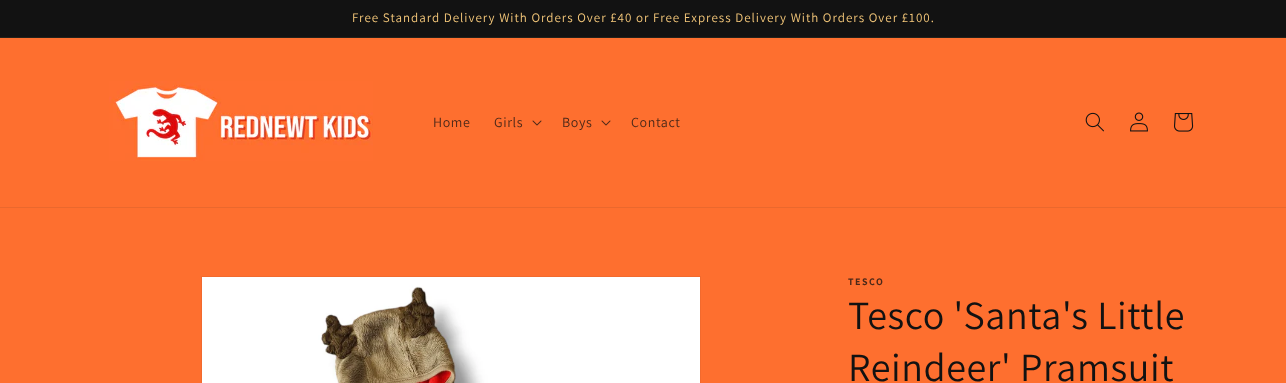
<svg xmlns="http://www.w3.org/2000/svg" width="1286" height="383" viewBox="0 0 1286 383">
  <rect width="100%" height="100%" fill="#fe6f2f"/>
  <rect x="0" y="0" width="1286" height="37" fill="#121212"/>
  <rect x="0" y="37" width="1286" height="1" fill="#24211a"/>
  <text x="352" y="22" font-family="Assistant" font-size="13" letter-spacing="1" fill="#f5c87a">Free Standard Delivery With Orders Over £40 or Free Express Delivery With Orders Over £100.</text>
  <rect x="0" y="207" width="1286" height="1" fill="#eb682d"/>
  <image x="109" y="81" width="264" height="80" href="img1.png"/>
  <text x="433" y="127" font-family="Assistant" font-size="14" letter-spacing="0.6" fill="#4d2919">Home</text>
  <text x="494" y="127" font-family="Assistant" font-size="14" letter-spacing="0.6" fill="#4d2919">Girls</text>
  <image x="532" y="120" width="10" height="6" href="img2.png"/>
  <text x="562" y="127" font-family="Assistant" font-size="14" letter-spacing="0.6" fill="#4d2919">Boys</text>
  <image x="601" y="120" width="10" height="6" href="img2.png"/>
  <text x="631" y="127" font-family="Assistant" font-size="14" letter-spacing="0.6" fill="#4d2919">Contact</text>
  <image x="1085" y="112" width="19" height="20" href="img3.png"/>
  <image x="1130" y="112" width="18" height="20" href="img4.png"/>
  <image x="1174" y="113" width="20" height="19" href="img5.png"/>
  <rect x="201.5" y="276.5" width="499" height="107" fill="none" stroke="#f26a2e"/>
  <image x="202" y="277" width="498" height="106" href="img6.png"/>
  <text x="848" y="285" font-family="Assistant" font-size="10" font-weight="bold" letter-spacing="1.5" fill="#4d2919">TESCO</text>
  <text x="848" y="329" font-family="Assistant" font-size="40" letter-spacing="0.6" fill="#121212">Tesco 'Santa's Little</text>
  <text x="848" y="381" font-family="Assistant" font-size="40" letter-spacing="0.6" fill="#121212">Reindeer' Pramsuit</text>
</svg>
